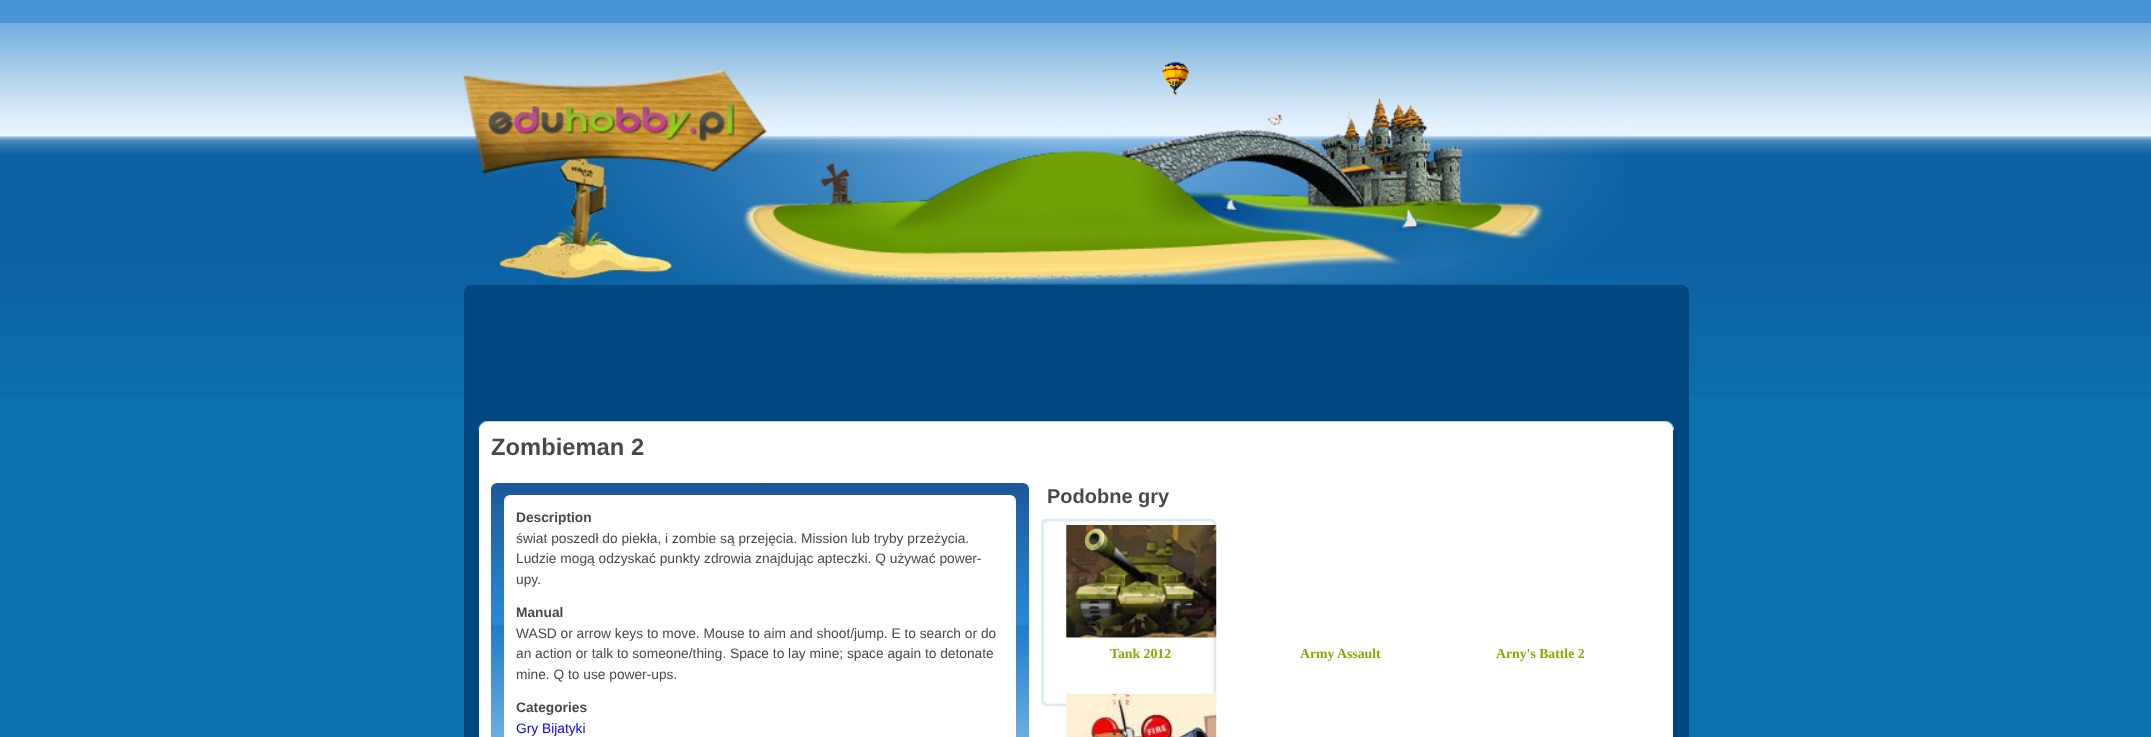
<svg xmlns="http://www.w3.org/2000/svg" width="2151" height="737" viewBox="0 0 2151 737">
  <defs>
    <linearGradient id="g1" gradientUnits="userSpaceOnUse" x1="760" y1="483" x2="760" y2="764"><stop offset="0" stop-color="#1e5799"/><stop offset="0.5" stop-color="#2989d8"/><stop offset="0.51" stop-color="#207cca"/><stop offset="1" stop-color="#7db9e8"/></linearGradient>
  </defs>
  <rect width="100%" height="100%" fill="#0a72af"/>
  <image x="0" y="23" width="2151" height="373" href="img1.png"/>
  <rect x="0" y="0" width="2151" height="23" fill="#4993d6"/>
  <image x="463" y="61" width="1162" height="223" href="img2.png"/>
  <path d="M472 285H1681C1685.5 285 1689 288.5 1689 293V403H464V293C464 288.5 467.5 285 472 285Z" fill="#004780"/>
  <rect x="464" y="403" width="1225" height="334" fill="#004780"/>
  <image x="478" y="421" width="1196" height="9" href="img3.png"/>
  <rect x="479" y="430" width="1194" height="307" fill="#ffffff"/>
  <text x="491" y="455" font-family="Liberation Sans" font-size="23.75" font-weight="bold" fill="#494949">Zombieman 2</text>
  <rect x="491" y="483" width="538" height="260" rx="6" fill="url(#g1)"/>
  <rect x="504" y="495" width="512" height="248" rx="6" fill="#ffffff"/>
  <text x="516" y="522" font-family="Liberation Sans" font-size="13.75" font-weight="bold" fill="#494949">Description</text>
  <text x="516" y="543" font-family="Liberation Sans" font-size="13.75" fill="#494949">świat poszedł do piekła, i zombie są przejęcia. Mission lub tryby przeżycia.</text>
  <text x="516" y="563" font-family="Liberation Sans" font-size="13.75" fill="#494949">Ludzie mogą odzyskać punkty zdrowia znajdując apteczki. Q używać power-</text>
  <text x="516" y="584" font-family="Liberation Sans" font-size="13.75" fill="#494949">upy.</text>
  <text x="516" y="617" font-family="Liberation Sans" font-size="13.75" font-weight="bold" fill="#494949">Manual</text>
  <text x="516" y="638" font-family="Liberation Sans" font-size="13.75" fill="#494949">WASD or arrow keys to move. Mouse to aim and shoot/jump. E to search or do</text>
  <text x="516" y="658" font-family="Liberation Sans" font-size="13.75" fill="#494949">an action or talk to someone/thing. Space to lay mine; space again to detonate</text>
  <text x="516" y="679" font-family="Liberation Sans" font-size="13.75" fill="#494949">mine. Q to use power-ups.</text>
  <text x="516" y="712" font-family="Liberation Sans" font-size="13.75" font-weight="bold" fill="#494949">Categories</text>
  <text x="516" y="733" font-family="Liberation Sans" font-size="13.75" fill="#0000ee">Gry Bijatyki</text>
  <text x="1047" y="503" font-family="Liberation Sans" font-size="20" font-weight="bold" fill="#494949">Podobne gry</text>
  <image x="1041" y="518" width="176" height="189" href="img4.png"/>
  <image x="1066" y="525" width="151" height="113" href="img5.png"/>
  <text x="1110" y="658" font-family="Liberation Serif" font-size="13.75" font-weight="bold" fill="#7fae00">Tank 2012</text>
  <text x="1300" y="658" font-family="Liberation Serif" font-size="13.75" font-weight="bold" fill="#7fae00">Army Assault</text>
  <text x="1496" y="658" font-family="Liberation Serif" font-size="13.75" font-weight="bold" fill="#7fae00">Arny's Battle 2</text>
  <image x="1066" y="693" width="151" height="44" href="img6.png"/>
</svg>
